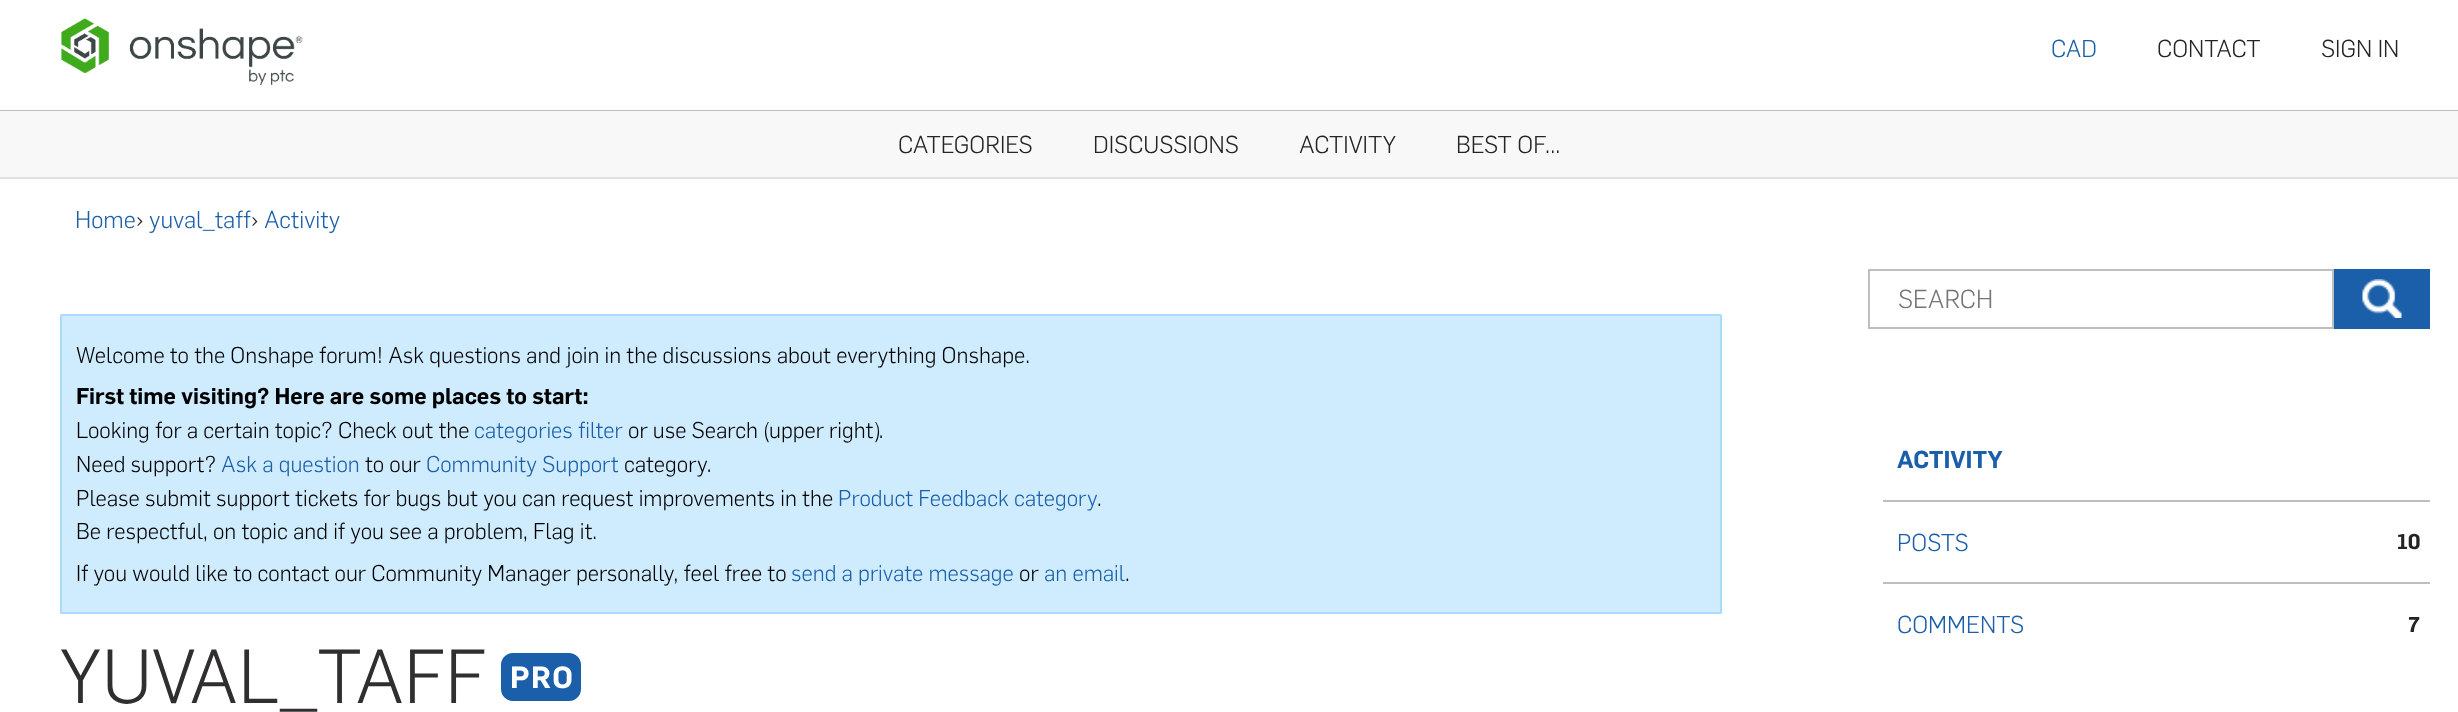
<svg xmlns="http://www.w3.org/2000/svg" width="2458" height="712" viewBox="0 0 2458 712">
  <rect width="100%" height="100%" fill="#ffffff"/>
  <rect x="0" y="110" width="2458" height="1" fill="#bebebe"/>
  <image x="61" y="18" width="242" height="67" href="img1.png"/>
  <text x="2051" y="57" font-family="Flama" font-size="24" font-weight="300" fill="#1b5faa">CAD</text>
  <text x="2157" y="57" font-family="Flama" font-size="24" font-weight="300" fill="#242424">CONTACT</text>
  <text x="2321" y="57" font-family="Flama" font-size="24" font-weight="300" fill="#242424">SIGN IN</text>
  <rect x="0" y="111" width="2458" height="66" fill="#f8f8f8"/>
  <rect x="0" y="177" width="2458" height="2" fill="#e1e1e1"/>
  <text x="898" y="153" font-family="Flama" font-size="24" font-weight="300" fill="#242424">CATEGORIES</text>
  <text x="1093" y="153" font-family="Flama" font-size="24" font-weight="300" fill="#242424">DISCUSSIONS</text>
  <text x="1299" y="153" font-family="Flama" font-size="24" font-weight="300" fill="#242424">ACTIVITY</text>
  <text x="1456" y="153" font-family="Flama" font-size="24" font-weight="300" fill="#242424">BEST OF...</text>
  <text x="75" y="228" font-family="Flama" font-size="24" font-weight="300" fill="#1b5faa">Home</text>
  <text x="136" y="228" font-family="Flama" font-size="24" font-weight="300" fill="#242424">›</text>
  <text x="149" y="228" font-family="Flama" font-size="24" font-weight="300" fill="#1b5faa">yuval_taff</text>
  <text x="251" y="228" font-family="Flama" font-size="24" font-weight="300" fill="#242424">›</text>
  <text x="264" y="228" font-family="Flama" font-size="24" font-weight="300" fill="#1b5faa">Activity</text>
  <rect x="61" y="315" width="1660" height="298" rx="0.5" fill="#cfecff" stroke="#abdafb" stroke-width="2"/>
  <text x="76" y="363" font-family="Flama" font-size="22.5" font-weight="300" fill="#000000">Welcome to the Onshape forum! Ask questions and join in the discussions about everything Onshape.</text>
  <text x="76" y="404" font-family="Flama" font-size="22.5" font-weight="600" fill="#000000">First time visiting? Here are some places to start:</text>
  <text x="76" y="438" font-family="Flama" font-size="22.5" font-weight="300" fill="#000000">Looking for a certain topic? Check out the</text>
  <text x="474" y="438" font-family="Flama" font-size="22.5" font-weight="300" fill="#1b5faa">categories filter</text>
  <text x="628" y="438" font-family="Flama" font-size="22.5" font-weight="300" fill="#000000">or use Search (upper right).</text>
  <text x="76" y="472" font-family="Flama" font-size="22.5" font-weight="300" fill="#000000">Need support?</text>
  <text x="221" y="472" font-family="Flama" font-size="22.5" font-weight="300" fill="#1b5faa">Ask a question</text>
  <text x="365" y="472" font-family="Flama" font-size="22.5" font-weight="300" fill="#000000">to our</text>
  <text x="426" y="472" font-family="Flama" font-size="22.5" font-weight="300" fill="#1b5faa">Community Support</text>
  <text x="624" y="472" font-family="Flama" font-size="22.5" font-weight="300" fill="#000000">category.</text>
  <text x="76" y="506" font-family="Flama" font-size="22.5" font-weight="300" fill="#000000">Please submit support tickets for bugs but you can request improvements in the</text>
  <text x="838" y="506" font-family="Flama" font-size="22.5" font-weight="300" fill="#1b5faa">Product Feedback category</text>
  <text x="1097" y="506" font-family="Flama" font-size="22.5" font-weight="300" fill="#000000">.</text>
  <text x="76" y="539" font-family="Flama" font-size="22.5" font-weight="300" fill="#000000">Be respectful, on topic and if you see a problem, Flag it.</text>
  <text x="76" y="581" font-family="Flama" font-size="22.5" font-weight="300" fill="#000000">If you would like to contact our Community Manager personally, feel free to</text>
  <text x="791" y="581" font-family="Flama" font-size="22.5" font-weight="300" fill="#1b5faa">send a private message</text>
  <text x="1019" y="581" font-family="Flama" font-size="22.5" font-weight="300" fill="#000000">or</text>
  <text x="1044" y="581" font-family="Flama" font-size="22.5" font-weight="300" fill="#1b5faa">an email</text>
  <text x="1125" y="581" font-family="Flama" font-size="22.5" font-weight="300" fill="#000000">.</text>
  <text x="59" y="703" font-family="Flama" font-size="75" font-weight="300" fill="#302e2f">YUVAL_TAFF</text>
  <rect x="502" y="654" width="78" height="46" rx="11" fill="#1b5faa" stroke="#1b5faa" stroke-width="2"/>
  <text x="510" y="688" font-family="Flama" font-size="30" font-weight="600" letter-spacing="1.5" fill="#ffffff">PRO</text>
  <rect x="1869" y="270" width="464" height="58" fill="none" stroke="#bebebe" stroke-width="2"/>
  <text x="1898" y="308" font-family="Flama" font-size="25.5" font-weight="300" fill="#757575">SEARCH</text>
  <rect x="2334" y="269" width="96" height="60" fill="#1b5faa"/>
  <image x="2362" y="279" width="40" height="39" href="img2.png"/>
  <rect x="1883" y="500" width="547" height="2" fill="#bebebe"/>
  <text x="1897" y="468" font-family="Flama" font-size="24" font-weight="600" fill="#1b5faa">ACTIVITY</text>
  <rect x="1883" y="582" width="547" height="2" fill="#bebebe"/>
  <text x="1897" y="551" font-family="Flama" font-size="24" font-weight="300" fill="#1b5faa">POSTS</text>
  <text x="2397" y="549" font-family="Flama" font-size="21" font-weight="600" fill="#242424">10</text>
  <text x="1897" y="633" font-family="Flama" font-size="24" font-weight="300" fill="#1b5faa">COMMENTS</text>
  <text x="2408" y="632" font-family="Flama" font-size="21" font-weight="600" fill="#242424">7</text>
</svg>
